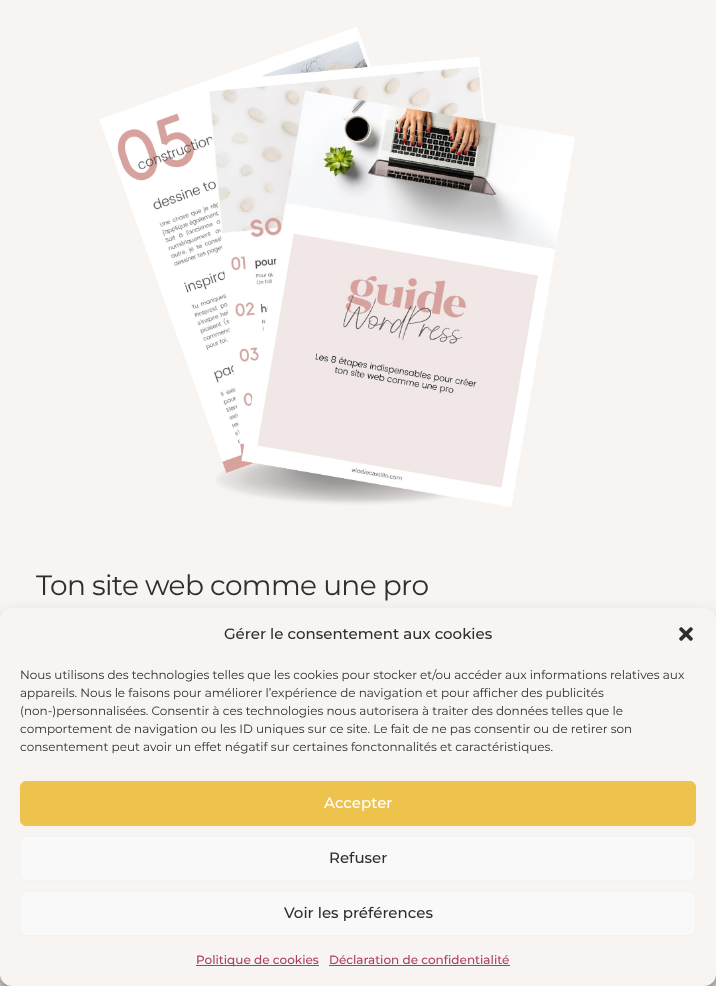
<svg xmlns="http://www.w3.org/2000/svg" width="716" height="986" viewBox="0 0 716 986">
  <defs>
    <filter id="blur1" x="-50%" y="-200%" width="200%" height="500%"><feGaussianBlur stdDeviation="3"/></filter>
    <filter id="blur2" x="-50%" y="-200%" width="200%" height="500%"><feGaussianBlur stdDeviation="10"/></filter>
  </defs>
  <rect width="100%" height="100%" fill="#f8f4f2"/>
  <image x="99" y="27" width="476" height="480" href="img1.png"/>
  <text x="36" y="595" font-family="Montserrat" font-size="28" letter-spacing="-0.6" fill="#2e2e2e">Ton site web comme une pro</text>
  <image x="0" y="974" width="716" height="12" href="img2.png"/>
  <rect x="0" y="614" width="716" height="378" rx="12" fill="#000000" fill-opacity="0.23" filter="url(#blur1)"/>
  <rect x="0" y="618" width="716" height="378" rx="12" fill="#000000" fill-opacity="0.19" filter="url(#blur2)"/>
  <rect x="0" y="608" width="716" height="378" rx="12" fill="#f8f4f2"/>
  <text x="224" y="639" font-family="Montserrat" font-size="15" font-weight="500" fill="#2e2e2e">Gérer le consentement aux cookies</text>
  <image x="679" y="627" width="14" height="14" href="img3.png"/>
  <text x="20" y="679" font-family="Montserrat" font-size="12" fill="#2e2e2e">Nous utilisons des technologies telles que les cookies pour stocker et/ou accéder aux informations relatives aux</text>
  <text x="20" y="697" font-family="Montserrat" font-size="12" fill="#2e2e2e">appareils. Nous le faisons pour améliorer l’expérience de navigation et pour afficher des publicités</text>
  <text x="20" y="715" font-family="Montserrat" font-size="12" fill="#2e2e2e">(non-)personnalisées. Consentir à ces technologies nous autorisera à traiter des données telles que le</text>
  <text x="20" y="733" font-family="Montserrat" font-size="12" fill="#2e2e2e">comportement de navigation ou les ID uniques sur ce site. Le fait de ne pas consentir ou de retirer son</text>
  <text x="20" y="751" font-family="Montserrat" font-size="12" fill="#2e2e2e">consentement peut avoir un effet négatif sur certaines fonctonnalités et caractéristiques.</text>
  <rect x="20.5" y="781.5" width="675" height="44" rx="5.5" fill="#edc34e" stroke="#edc34e"/>
  <text x="324" y="808" font-family="Montserrat" font-size="15" font-weight="500" fill="#ffffff">Accepter</text>
  <rect x="20.5" y="836.5" width="675" height="44" rx="5.5" fill="#f9f9f9" stroke="#f2f2f2"/>
  <text x="329" y="863" font-family="Montserrat" font-size="15" font-weight="500" fill="#2e2e2e">Refuser</text>
  <rect x="20.5" y="891.5" width="675" height="44" rx="5.5" fill="#f9f9f9" stroke="#f2f2f2"/>
  <text x="284" y="918" font-family="Montserrat" font-size="15" font-weight="500" fill="#2e2e2e">Voir les préférences</text>
  <rect x="196" y="965" width="123" height="1" fill="#a93e66"/>
  <text x="196" y="964" font-family="Montserrat" font-size="12" font-weight="500" fill="#a93e66">Politique de cookies</text>
  <text x="329" y="964" font-family="Montserrat" font-size="12" font-weight="500" fill="#a93e66">Déclaration de confidentialité</text>
  <rect x="329" y="965" width="181" height="1" fill="#a93e66"/>
</svg>
